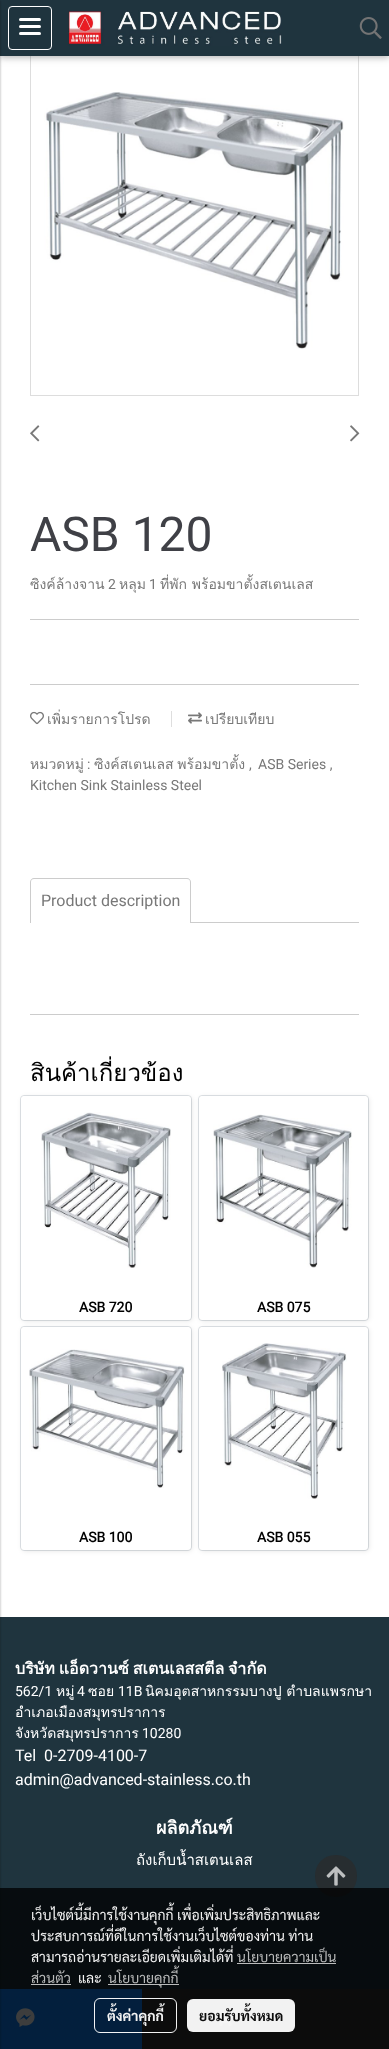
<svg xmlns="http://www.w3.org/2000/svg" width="389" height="2049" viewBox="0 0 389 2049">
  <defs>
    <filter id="blur1" x="-50%" y="-200%" width="200%" height="500%"><feGaussianBlur stdDeviation="5"/></filter>
    <filter id="blur2" x="-50%" y="-200%" width="200%" height="500%"><feGaussianBlur stdDeviation="2.5"/></filter>
    <filter id="blur3" x="-50%" y="-200%" width="200%" height="500%"><feGaussianBlur stdDeviation="1"/></filter>
    <filter id="blur4" x="-50%" y="-200%" width="200%" height="500%"><feGaussianBlur stdDeviation="1.5"/></filter>
  </defs>
  <rect width="100%" height="100%" fill="#ffffff"/>
  <rect x="30.5" y="37.5" width="328" height="358" fill="none" stroke="#dddddd"/>
  <rect x="0" y="2" width="389" height="56" fill="#000000" fill-opacity="0.12" filter="url(#blur1)"/>
  <rect x="0" y="2" width="389" height="56" fill="#000000" fill-opacity="0.16" filter="url(#blur2)"/>
  <rect x="0" y="0" width="389" height="56" fill="#1f343e"/>
  <rect x="0" y="1989" width="142" height="60" fill="#0f84fd"/>
  <rect x="0" y="1617" width="389" height="372" fill="#1f343e"/>
  <rect x="-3" y="1" width="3" height="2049" fill="#000000" fill-opacity="0.24" filter="url(#blur3)"/>
  <rect x="-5" y="1" width="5" height="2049" fill="#000000" fill-opacity="0.12" filter="url(#blur4)"/>
  <rect x="8.5" y="6.5" width="43" height="43" rx="3.5" fill="none" stroke="#ffffff"/>
  <rect x="19" y="25" width="22" height="3" rx="1.5" fill="#ffffff"/>
  <rect x="19" y="18" width="22" height="3" rx="1.5" fill="#ffffff"/>
  <rect x="19" y="32" width="22" height="3" rx="1.5" fill="#ffffff"/>
  <image x="68" y="10" width="214" height="36" href="img1.png"/>
  <image x="359" y="17" width="23" height="22" href="img2.png"/>
  <image x="44" y="92" width="300" height="257" href="img3.png"/>
  <image x="30" y="425" width="10" height="17" href="img4.png"/>
  <image x="350" y="425" width="10" height="17" href="img5.png"/>
  <text x="30" y="551" font-family="Roboto" font-size="48" fill="#3f4046">ASB 120</text>
  <text x="30" y="589" font-family="Loma" font-size="14" fill="#787878">ซิงค์ล้างจาน</text>
  <text x="108" y="589" font-family="Roboto" font-size="14" fill="#787878">2</text>
  <text x="119" y="589" font-family="Loma" font-size="14" fill="#787878">หลุม</text>
  <text x="149" y="589" font-family="Roboto" font-size="14" fill="#787878">1</text>
  <text x="160" y="589" font-family="Loma" font-size="14" fill="#787878">ที่พัก พร้อมขาตั้งสเตนเลส</text>
  <rect x="30" y="619" width="329" height="1" fill="#cccccc"/>
  <rect x="30" y="684" width="329" height="1" fill="#cccccc"/>
  <image x="30" y="711" width="14" height="14" href="img6.png"/>
  <text x="47" y="724" font-family="Loma" font-size="14" fill="#787878">เพิ่มรายการโปรด</text>
  <rect x="171" y="711" width="1" height="16" fill="#dedede"/>
  <image x="188" y="712" width="14" height="12" href="img7.png"/>
  <text x="205" y="724" font-family="Loma" font-size="14" fill="#787878">เปรียบเทียบ</text>
  <text x="30" y="769" font-family="Loma" font-size="14" fill="#787878">หมวดหมู่</text>
  <text x="87" y="769" font-family="Roboto" font-size="14" fill="#787878">:</text>
  <text x="94" y="769" word-spacing="-1" font-family="Loma" font-size="14" fill="#787878">ซิงค์สเตนเลส พร้อมขาตั้ง</text>
  <text x="258" y="769" font-family="Roboto" font-size="14" fill="#787878">ASB Series ,</text>
  <text x="249" y="769" font-family="Roboto" font-size="14" fill="#787878">,</text>
  <text x="30" y="790" font-family="Roboto" font-size="14" fill="#787878">Kitchen Sink Stainless Steel</text>
  <image x="16" y="2008" width="19" height="19" href="img8.png"/>
  <rect x="142" y="1989" width="247" height="60" fill="#333333"/>
  <image x="215" y="2010" width="18" height="16" href="img9.png"/>
  <path d="M34 878H187C189 878 191 880 191 882V923H30V882C30 880 32 878 34 878ZM34 879H187C189 879 190 880 190 882V923H31V882C31 880 32 879 34 879Z" fill="#cccccc" fill-rule="evenodd"/>
  <text x="41" y="906" font-family="Roboto" font-size="16" fill="#787878">Product description</text>
  <rect x="191" y="922" width="168" height="1" fill="#cccccc"/>
  <rect x="30" y="1014" width="329" height="1" fill="#cccccc"/>
  <text x="30" y="1081" font-family="Loma" font-size="24" fill="#000000">สินค้าเกี่ยวข้อง</text>
  <rect x="20.5" y="1095.5" width="171" height="225" rx="3.5" fill="none" stroke="#dee2e6"/>
  <rect x="22" y="1097" width="170" height="224" rx="4" fill="#000000" fill-opacity="0.1" filter="url(#blur2)"/>
  <rect x="21" y="1096" width="170" height="224" rx="4" fill="#ffffff"/>
  <path d="M25 1096H187C189 1096 191 1098 191 1100V1283H21V1100C21 1098 23 1096 25 1096Z" fill="#ffffff"/>
  <image x="41" y="1112" width="130" height="156" href="img10.png"/>
  <text x="79" y="1312" font-family="Roboto" font-size="14" font-weight="bold" fill="#000000">ASB 720</text>
  <rect x="198.5" y="1095.5" width="170" height="225" rx="3.5" fill="none" stroke="#dee2e6"/>
  <rect x="200" y="1097" width="169" height="224" rx="4" fill="#000000" fill-opacity="0.1" filter="url(#blur2)"/>
  <rect x="199" y="1096" width="169" height="224" rx="4" fill="#ffffff"/>
  <path d="M203 1096H364C366 1096 368 1098 368 1100V1283H199V1100C199 1098 201 1096 203 1096Z" fill="#ffffff"/>
  <image x="213" y="1114" width="139" height="154" href="img11.png"/>
  <text x="257" y="1312" font-family="Roboto" font-size="14" font-weight="bold" fill="#000000">ASB 075</text>
  <rect x="20.5" y="1326.5" width="171" height="224" rx="3.5" fill="none" stroke="#dee2e6"/>
  <rect x="22" y="1328" width="170" height="223" rx="4" fill="#000000" fill-opacity="0.1" filter="url(#blur2)"/>
  <rect x="21" y="1327" width="170" height="223" rx="4" fill="#ffffff"/>
  <path d="M25 1327H187C189 1327 191 1329 191 1331V1513H21V1331C21 1329 23 1327 25 1327Z" fill="#ffffff"/>
  <image x="29" y="1349" width="156" height="139" href="img12.png"/>
  <text x="79" y="1542" font-family="Roboto" font-size="14" font-weight="bold" fill="#000000">ASB 100</text>
  <rect x="198.5" y="1326.5" width="170" height="224" rx="3.5" fill="none" stroke="#dee2e6"/>
  <rect x="200" y="1328" width="169" height="223" rx="4" fill="#000000" fill-opacity="0.1" filter="url(#blur2)"/>
  <rect x="199" y="1327" width="169" height="223" rx="4" fill="#ffffff"/>
  <path d="M203 1327H364C366 1327 368 1329 368 1331V1513H199V1331C199 1329 201 1327 203 1327Z" fill="#ffffff"/>
  <image x="222" y="1343" width="125" height="156" href="img13.png"/>
  <text x="257" y="1542" font-family="Roboto" font-size="14" font-weight="bold" fill="#000000">ASB 055</text>
  <text x="15" y="1674" word-spacing="-1.5" font-family="Loma" font-size="16" font-weight="bold" fill="#ffffff">บริษัท แอ็ดวานซ์ สเตนเลสสตีล จำกัด</text>
  <text x="15" y="1696" font-family="Roboto" font-size="14" fill="#ffffff">562/1</text>
  <text x="56" y="1696" font-family="Loma" font-size="14" fill="#ffffff">หมู่</text>
  <text x="77" y="1696" font-family="Roboto" font-size="14" fill="#ffffff">4</text>
  <text x="88" y="1696" font-family="Loma" font-size="14" fill="#ffffff">ซอย</text>
  <text x="118" y="1696" font-family="Roboto" font-size="14" fill="#ffffff">11B</text>
  <text x="145" y="1696" font-family="Loma" font-size="14" fill="#ffffff">นิคมอุตสาหกรรมบางปู ตำบลแพรกษา</text>
  <text x="15" y="1717" font-family="Loma" font-size="14" fill="#ffffff">อำเภอเมืองสมุทรปราการ</text>
  <text x="15" y="1738" font-family="Loma" font-size="14" fill="#ffffff">จังหวัดสมุทรปราการ</text>
  <text x="142" y="1738" font-family="Roboto" font-size="14" fill="#ffffff">10280</text>
  <text x="15" y="1761" font-family="Roboto" font-size="16" fill="#ffffff" xml:space="preserve">Tel  0-2709-4100-7</text>
  <text x="15" y="1785" font-family="Roboto" font-size="16" fill="#ffffff">admin@advanced-stainless.co.th</text>
  <text x="156" y="1834" font-family="Loma" font-size="18" font-weight="bold" fill="#ffffff">ผลิตภัณฑ์</text>
  <text x="136" y="1865" font-family="Loma" font-size="15" fill="#ffffff">ถังเก็บน้ำสเตนเลส</text>
  <path d="M336 1855C308 1855 308 1897 336 1897C364 1897 364 1855 336 1855Z" fill="#272d30"/>
  <image x="326" y="1866" width="20" height="20" href="img14.png"/>
  <rect x="0" y="1888" width="389" height="161" fill="#000000" fill-opacity="0.76"/>
  <text x="31" y="1920" font-family="Sarabun" font-size="14" fill="#f3f3f3">เว็บไซต์นี้มีการใช้งานคุกกี้ เพื่อเพิ่มประสิทธิภาพและ</text>
  <text x="31" y="1941" font-family="Sarabun" font-size="14" fill="#f3f3f3">ประสบการณ์ที่ดีในการใช้งานเว็บไซต์ของท่าน ท่าน</text>
  <text x="31" y="1962" font-family="Sarabun" font-size="14" fill="#f3f3f3">สามารถอ่านรายละเอียดเพิ่มเติมได้ที่</text>
  <text x="237" y="1962" font-family="Sarabun" font-size="14" fill="#babbbb">นโยบายความเป็น</text>
  <rect x="237" y="1963" width="99" height="1" fill="#babbbb"/>
  <text x="31" y="1983" font-family="Sarabun" font-size="14" fill="#babbbb">ส่วนตัว</text>
  <rect x="31" y="1984" width="40" height="1" fill="#babbbb"/>
  <text x="78" y="1983" font-family="Sarabun" font-size="14" fill="#f3f3f3">และ</text>
  <rect x="108" y="1984" width="71" height="1" fill="#babbbb"/>
  <text x="108" y="1983" font-family="Sarabun" font-size="14" fill="#babbbb">นโยบายคุกกี้</text>
  <rect x="94.5" y="1998.5" width="82" height="34" rx="5.5" fill="none" stroke="#ffffff" stroke-opacity="0.95"/>
  <text x="107" y="2021" font-family="Sarabun" font-size="14" font-weight="bold" fill="#f3f3f3">ตั้งค่าคุกกี้</text>
  <rect x="187" y="1999" width="108" height="33" rx="6" fill="#ffffff" fill-opacity="0.95"/>
  <text x="199" y="2021" font-family="Sarabun" font-size="14" font-weight="bold" fill="#0c0c0c">ยอมรับทั้งหมด</text>
</svg>
